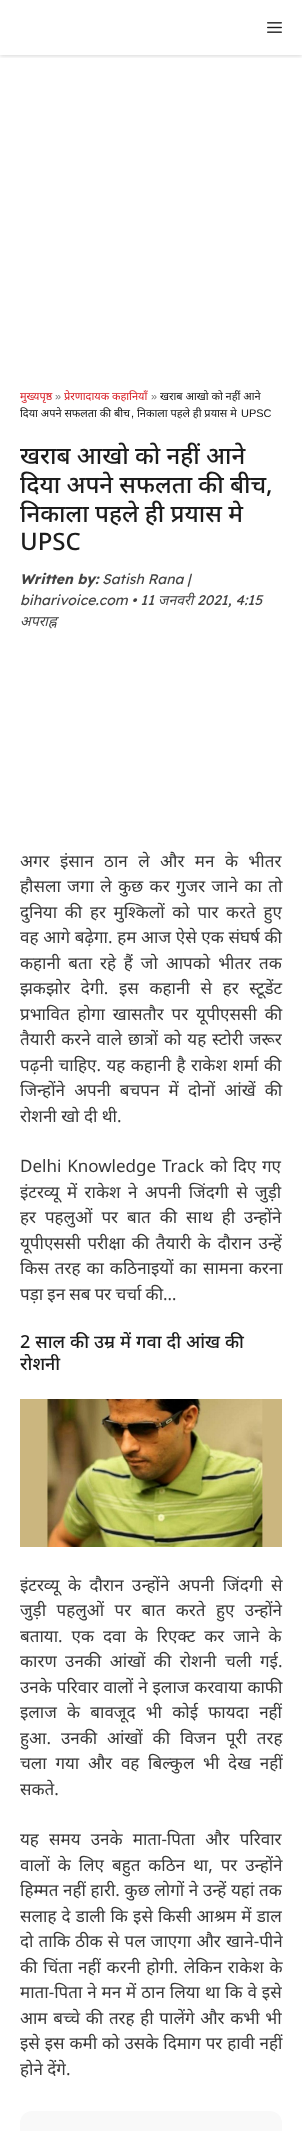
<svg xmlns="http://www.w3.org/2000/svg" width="302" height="2131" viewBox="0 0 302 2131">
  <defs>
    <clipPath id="clip1"><rect x="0" y="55" width="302" height="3"/></clipPath>
    <filter id="blur1" x="-50%" y="-200%" width="200%" height="500%"><feGaussianBlur stdDeviation="2"/></filter>
  </defs>
  <rect width="100%" height="100%" fill="#ffffff"/>
  <g clip-path="url(#clip1)">
    <rect x="0" y="1" width="302" height="55" fill="#000000" fill-opacity="0.16" filter="url(#blur1)"/>
  </g>
  <image x="267" y="22" width="15" height="11" href="img1.png"/>
  <text x="20" y="400" font-family="Noto Sans" font-size="11" fill="#d71920">मुख्यपृष्ठ</text>
  <text x="55" y="400" font-family="Liberation Sans" font-size="11" fill="#777777">»</text>
  <text x="64" y="400" font-family="Noto Sans" font-size="11" fill="#d71920">प्रेरणादायक कहानियाँ</text>
  <text x="151" y="400" font-family="Liberation Sans" font-size="11" fill="#777777">»</text>
  <text x="160" y="400" font-family="Noto Sans" font-size="11" fill="#111111">खराब आखो को नहीं आने</text>
  <text x="20" y="417" font-family="Noto Sans" font-size="11" fill="#111111">दिया अपने सफलता की बीच</text>
  <text x="131" y="417" font-family="Liberation Sans" font-size="11" fill="#111111">,</text>
  <text x="137" y="417" font-family="Noto Sans" font-size="11" fill="#111111">निकाला पहले ही प्रयास मे</text>
  <text x="241" y="417" font-family="Liberation Sans" font-size="11" fill="#111111">UPSC</text>
  <text x="20" y="464" font-family="Noto Sans" font-size="24" font-weight="500" fill="#1d1d1d">खराब आखो को नहीं आने</text>
  <text x="20" y="493" font-family="Noto Sans" font-size="24" font-weight="500" fill="#1d1d1d">दिया अपने सफलता की बीच,</text>
  <text x="20" y="522" font-family="Noto Sans" font-size="24" font-weight="500" fill="#1d1d1d">निकाला पहले ही प्रयास मे</text>
  <text x="20" y="550" font-family="Noto Sans" font-size="24" font-weight="500" fill="#1d1d1d">UPSC</text>
  <text x="20" y="584" font-family="Lexend Deca" font-size="14" font-weight="bold" font-style="italic" fill="#444444">Written by:</text>
  <text x="102" y="584" font-family="Lexend Deca" font-size="14" font-style="italic" fill="#444444">Satish Rana |</text>
  <text x="20" y="605" font-family="Lexend Deca" font-size="14" font-style="italic" fill="#444444">biharivoice.com • 11</text>
  <text x="158" y="605" font-family="Noto Sans" font-size="14" font-style="italic" fill="#444444">जनवरी</text>
  <text x="197" y="605" font-family="Lexend Deca" font-size="14" font-style="italic" fill="#444444">2021, 4:15</text>
  <text x="20" y="626" font-family="Noto Sans" font-size="14" font-style="italic" fill="#444444">अपराह्न</text>
  <text x="20" y="867" word-spacing="6" font-family="Noto Sans" font-size="17" fill="#383838">अगर इंसान ठान ले और मन के भीतर</text>
  <text x="20" y="892" word-spacing="2" font-family="Noto Sans" font-size="17" fill="#383838">हौसला जगा ले कुछ कर गुजर जाने का तो</text>
  <text x="20" y="918" word-spacing="3.25" font-family="Noto Sans" font-size="17" fill="#383838">दुनिया की हर मुश्किलों को पार करते हुए</text>
  <text x="20" y="943" word-spacing="0.25" font-family="Noto Sans" font-size="17" fill="#383838">वह आगे बढ़ेगा. हम आज ऐसे एक संघर्ष की</text>
  <text x="20" y="969" word-spacing="3.5" font-family="Noto Sans" font-size="17" fill="#383838">कहानी बता रहे हैं जो आपको भीतर तक</text>
  <text x="20" y="994" word-spacing="6.25" font-family="Noto Sans" font-size="17" fill="#383838">झकझोर देगी. इस कहानी से हर स्टूडेंट</text>
  <text x="20" y="1020" word-spacing="3.5" font-family="Noto Sans" font-size="17" fill="#383838">प्रभावित होगा खासतौर पर यूपीएससी की</text>
  <text x="20" y="1045" word-spacing="1.5" font-family="Noto Sans" font-size="17" fill="#383838">तैयारी करने वाले छात्रों को यह स्टोरी जरूर</text>
  <text x="20" y="1071" word-spacing="1" font-family="Noto Sans" font-size="17" fill="#383838">पढ़नी चाहिए. यह कहानी है राकेश शर्मा की</text>
  <text x="20" y="1096" word-spacing="4.75" font-family="Noto Sans" font-size="17" fill="#383838">जिन्होंने अपनी बचपन में दोनों आंखें की</text>
  <text x="20" y="1122" font-family="Noto Sans" font-size="17" fill="#383838">रोशनी खो दी थी.</text>
  <text x="20" y="1172" word-spacing="1.5" font-family="Noto Sans" font-size="17" fill="#383838">Delhi Knowledge Track को दिए गए</text>
  <text x="20" y="1198" word-spacing="3" font-family="Noto Sans" font-size="17" fill="#383838">इंटरव्यू में राकेश ने अपनी जिंदगी से जुड़ी</text>
  <text x="20" y="1223" word-spacing="4.5" font-family="Noto Sans" font-size="17" fill="#383838">हर पहलुओं पर बात की साथ ही उन्होंने</text>
  <text x="20" y="1249" word-spacing="2.25" font-family="Noto Sans" font-size="17" fill="#383838">यूपीएससी परीक्षा की तैयारी के दौरान उन्हें</text>
  <text x="20" y="1274" word-spacing="1.5" font-family="Noto Sans" font-size="17" fill="#383838">किस तरह का कठिनाइयों का सामना करना</text>
  <text x="20" y="1300" word-spacing="-0.25" font-family="Noto Sans" font-size="17" fill="#383838">पड़ा इन सब पर चर्चा की…</text>
  <text x="20" y="1348" word-spacing="0.25" font-family="Noto Sans" font-size="18" font-weight="500" fill="#1d1d1d">2 साल की उम्र में गवा दी आंख की</text>
  <text x="20" y="1370" font-family="Noto Sans" font-size="18" font-weight="500" fill="#1d1d1d">रोशनी</text>
  <image x="20" y="1399" width="262" height="148" href="img2.png"/>
  <text x="20" y="1591" word-spacing="4" font-family="Noto Sans" font-size="17" fill="#383838">इंटरव्यू के दौरान उन्होंने अपनी जिंदगी से</text>
  <text x="20" y="1616" word-spacing="6" font-family="Noto Sans" font-size="17" fill="#383838">जुड़ी पहलुओं पर बात करते हुए उन्होंने</text>
  <text x="20" y="1642" word-spacing="4.5" font-family="Noto Sans" font-size="17" fill="#383838">बताया. एक दवा के रिएक्ट कर जाने के</text>
  <text x="20" y="1667" word-spacing="4" font-family="Noto Sans" font-size="17" fill="#383838">कारण उनकी आंखों की रोशनी चली गई.</text>
  <text x="20" y="1693" word-spacing="0.5" font-family="Noto Sans" font-size="17" fill="#383838">उनके परिवार वालों ने इलाज करवाया काफी</text>
  <text x="20" y="1718" word-spacing="5.75" font-family="Noto Sans" font-size="17" fill="#383838">इलाज के बावजूद भी कोई फायदा नहीं</text>
  <text x="20" y="1744" word-spacing="5.5" font-family="Noto Sans" font-size="17" fill="#383838">हुआ. उनकी आंखों की विजन पूरी तरह</text>
  <text x="20" y="1769" word-spacing="4.25" font-family="Noto Sans" font-size="17" fill="#383838">चला गया और वह बिल्कुल भी देख नहीं</text>
  <text x="20" y="1795" font-family="Noto Sans" font-size="17" fill="#383838">सकते.</text>
  <text x="20" y="1845" word-spacing="5.75" font-family="Noto Sans" font-size="17" fill="#383838">यह समय उनके माता-पिता और परिवार</text>
  <text x="20" y="1871" word-spacing="3.5" font-family="Noto Sans" font-size="17" fill="#383838">वालों के लिए बहुत कठिन था, पर उन्होंने</text>
  <text x="20" y="1896" word-spacing="0.25" font-family="Noto Sans" font-size="17" fill="#383838">हिम्मत नहीं हारी. कुछ लोगों ने उन्हें यहां तक</text>
  <text x="20" y="1922" word-spacing="0.75" font-family="Noto Sans" font-size="17" fill="#383838">सलाह दे डाली कि इसे किसी आश्रम में डाल</text>
  <text x="20" y="1947" word-spacing="0.75" font-family="Noto Sans" font-size="17" fill="#383838">दो ताकि ठीक से पल जाएगा और खाने-पीने</text>
  <text x="20" y="1973" word-spacing="1.25" font-family="Noto Sans" font-size="17" fill="#383838">की चिंता नहीं करनी होगी. लेकिन राकेश के</text>
  <text x="20" y="1998" word-spacing="0.5" font-family="Noto Sans" font-size="17" fill="#383838">माता-पिता ने मन में ठान लिया था कि वे इसे</text>
  <text x="20" y="2024" word-spacing="1.25" font-family="Noto Sans" font-size="17" fill="#383838">आम बच्चे की तरह ही पालेंगे और कभी भी</text>
  <text x="20" y="2049" word-spacing="0.5" font-family="Noto Sans" font-size="17" fill="#383838">इसे इस कमी को उसके दिमाग पर हावी नहीं</text>
  <text x="20" y="2075" font-family="Noto Sans" font-size="17" fill="#383838">होने देंगे.</text>
  <rect x="20" y="2111" width="262" height="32" rx="12" fill="#f9f9f9"/>
</svg>
